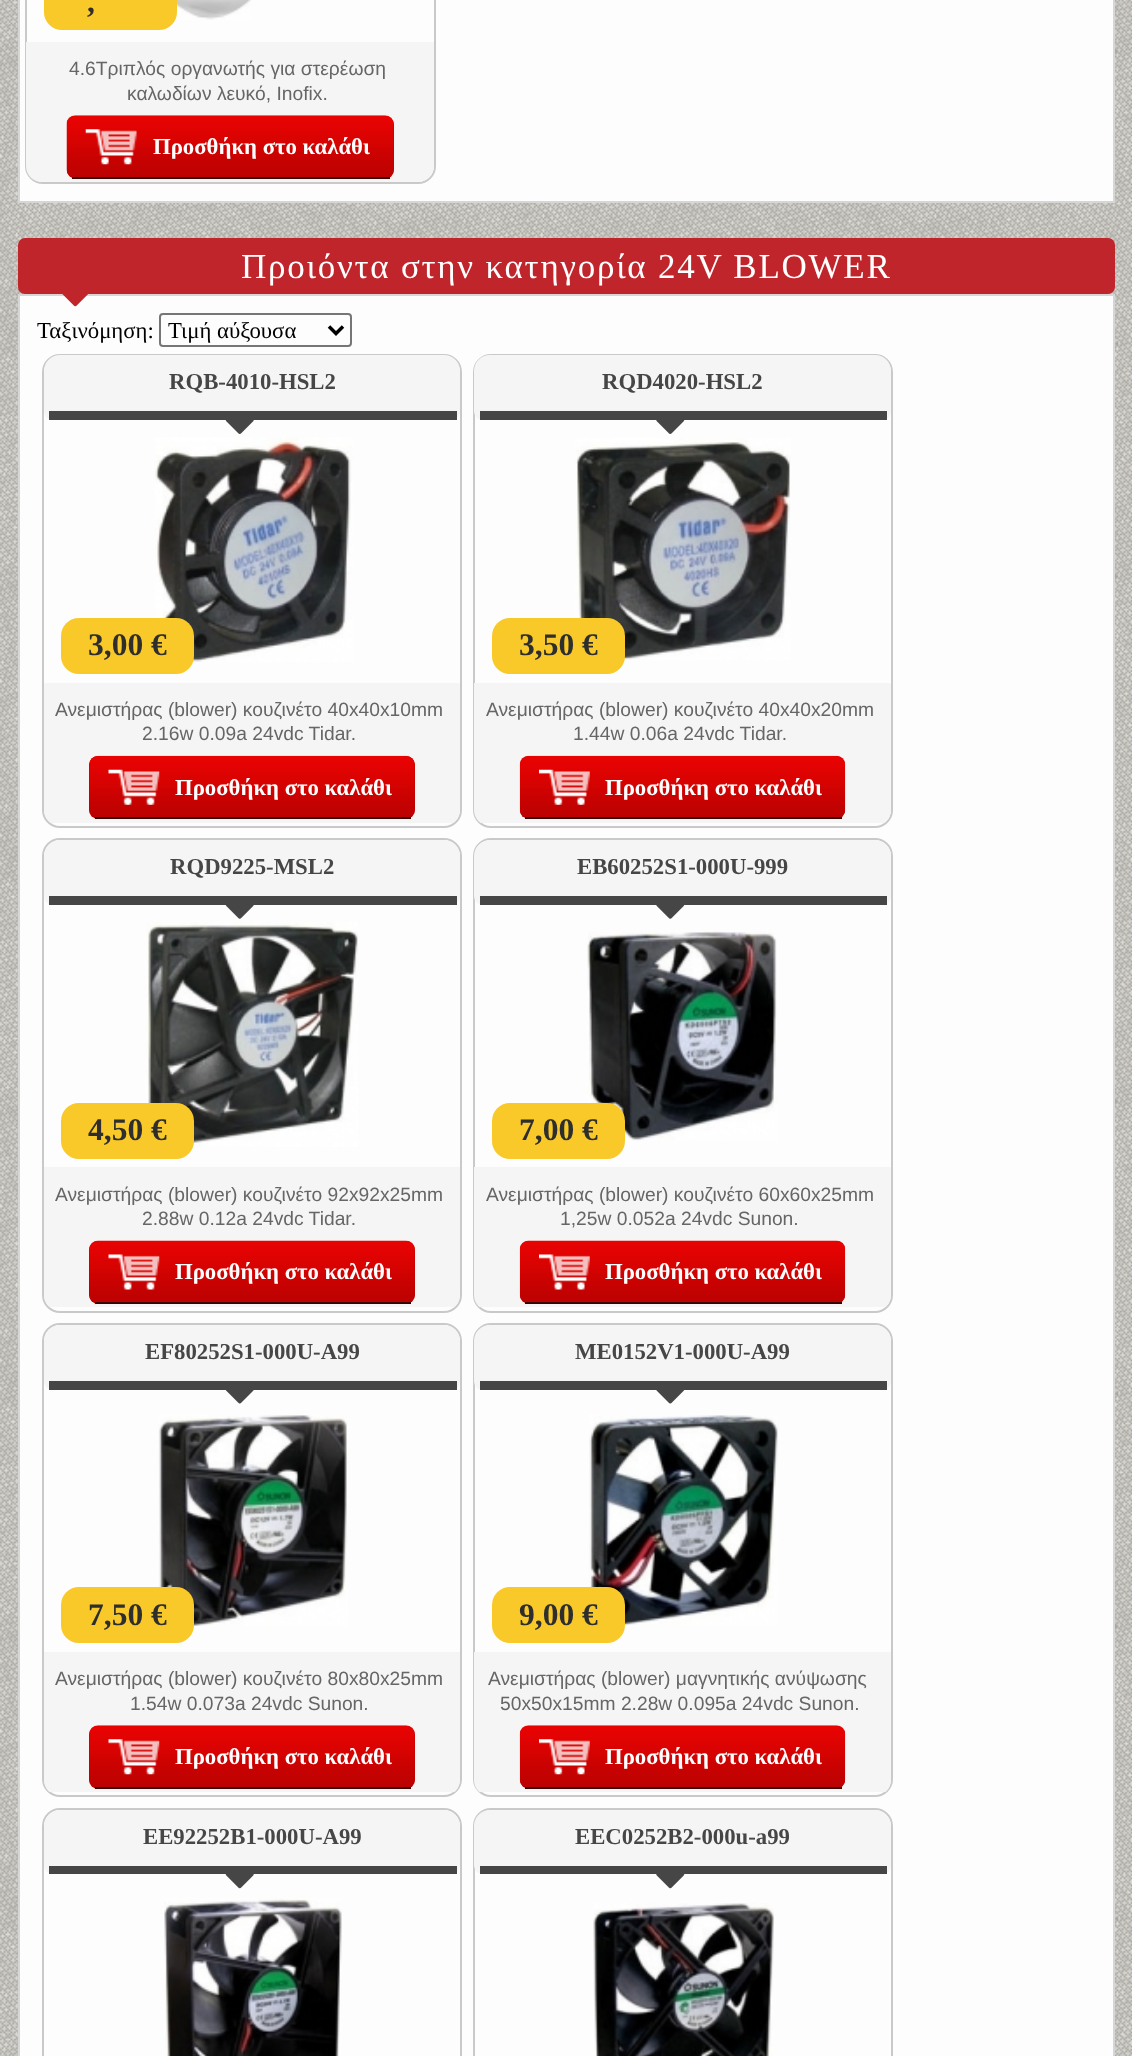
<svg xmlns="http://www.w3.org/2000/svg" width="1132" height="2056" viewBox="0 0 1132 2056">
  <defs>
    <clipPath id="clip1"><rect x="44" y="355" width="416" height="471" rx="16"/></clipPath>
    <clipPath id="clip2"><rect x="474" y="355" width="417" height="471" rx="16"/></clipPath>
    <clipPath id="clip3"><rect x="44" y="840" width="416" height="471" rx="16"/></clipPath>
    <clipPath id="clip4"><rect x="474" y="840" width="417" height="471" rx="16"/></clipPath>
    <clipPath id="clip5"><rect x="44" y="1325" width="416" height="471" rx="16"/></clipPath>
    <clipPath id="clip6"><rect x="474" y="1325" width="417" height="471" rx="16"/></clipPath>
  </defs>
  <rect width="100%" height="100%" fill="#ffffff"/>
  <image x="0" y="0" width="1132" height="2056" href="img1.png"/>
  <rect x="19" y="-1" width="1095" height="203" fill="#fdfdfd" stroke="#d6d6d6" stroke-width="2"/>
  <rect x="26" y="-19" width="409" height="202" rx="17" fill="none" stroke="#c9c9c9" stroke-width="2"/>
  <image x="175" y="0" width="76" height="20" href="img2.png"/>
  <rect x="44" y="-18" width="133" height="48" rx="18" fill="#f8c928"/>
  <text x="87" y="12" font-family="Liberation Serif" font-size="31.5" font-weight="bold" fill="#2e2e2e">,</text>
  <rect x="26" y="42" width="408" height="70" fill="#f5f5f5"/>
  <text x="69" y="75" font-family="Liberation Sans" font-size="19.25" fill="#666666">4.6Τριπλός οργανωτής για στερέωση</text>
  <text x="127" y="100" font-family="Liberation Sans" font-size="19.25" fill="#666666">καλωδίων λευκό, Inofix.</text>
  <path d="M26 112H434V166C434 175 427 182 418 182H42C33 182 26 175 26 166Z" fill="#f5f5f5"/>
  <rect x="67" y="116" width="327" height="63" rx="9" fill="#bc0201"/>
  <image x="66" y="115" width="328" height="62" href="img3.png"/>
  <rect x="72" y="177" width="318" height="2" fill="#3a0000"/>
  <image x="85" y="129" width="52" height="36" href="img4.png"/>
  <text x="153" y="154" font-family="Liberation Serif" font-size="22.75" font-weight="bold" fill="#ffffff">Προσθήκη στο καλάθι</text>
  <rect x="18" y="238" width="1097" height="56" rx="7" fill="#bf252b"/>
  <text x="241" y="278" font-family="Liberation Serif" font-size="35" letter-spacing="1.75" fill="#ffffff">Προιόντα στην κατηγορία 24V BLOWER</text>
  <rect x="19" y="295" width="1095" height="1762" fill="#fdfdfd" stroke="#d6d6d6" stroke-width="2"/>
  <image x="62" y="294" width="27" height="13" href="img5.png"/>
  <text x="37" y="338" font-family="Liberation Serif" font-size="22.75" fill="#000000">Ταξινόμηση:</text>
  <rect x="160" y="314" width="191" height="32" rx="3" fill="none" stroke="#767676" stroke-width="2"/>
  <path d="M329 326.5L336 333.5L343 326.5" fill="none" stroke="#000000" stroke-width="3.5"/>
  <text x="168" y="338" font-family="Liberation Serif" font-size="22.75" fill="#000000">Τιμή αύξουσα</text>
  <rect x="43" y="355" width="418" height="472" rx="17" fill="none" stroke="#c9c9c9" stroke-width="2"/>
  <path d="M60 355H444C453 355 460 362 460 371V411C460 416 456 420 451 420H53C48 420 44 416 44 411V371C44 362 51 355 60 355Z" fill="#f5f5f5"/>
  <rect x="49" y="411" width="408" height="9" fill="#474646"/>
  <text x="169" y="389" font-family="Liberation Serif" font-size="22.75" font-weight="bold" fill="#474646">RQB-4010-HSL2</text>
  <image x="225" y="420" width="29" height="14" href="img6.png"/>
  <image x="155" y="437" width="198" height="225" href="img7.png"/>
  <rect x="61" y="618" width="133" height="56" rx="18" fill="#f8c928"/>
  <text x="88" y="655" font-family="Liberation Serif" font-size="31.5" font-weight="bold" fill="#2e2e2e">3,00 €</text>
  <rect x="44" y="683" width="416" height="70" fill="#f5f5f5"/>
  <text x="55" y="716" font-family="Liberation Sans" font-size="19.25" fill="#666666">Ανεμιστήρας (blower) κουζινέτο 40x40x10mm</text>
  <text x="142" y="740" font-family="Liberation Sans" font-size="19.25" fill="#666666">2.16w 0.09a 24vdc Tidar.</text>
  <g clip-path="url(#clip1)">
    <rect x="44" y="753" width="416" height="70" fill="#f5f5f5"/>
  </g>
  <rect x="89" y="756" width="326" height="63" rx="9" fill="#bc0201"/>
  <image x="89" y="755" width="326" height="62" href="img8.png"/>
  <rect x="95" y="817" width="316" height="2" fill="#3a0000"/>
  <image x="108" y="769" width="52" height="36" href="img9.png"/>
  <text x="175" y="795" font-family="Liberation Serif" font-size="22.75" font-weight="bold" fill="#ffffff">Προσθήκη στο καλάθι</text>
  <rect x="474" y="355" width="418" height="472" rx="17" fill="none" stroke="#c9c9c9" stroke-width="2"/>
  <path d="M490 355H875C884 355 891 362 891 371V411C891 416 887 420 882 420H483C478 420 474 416 474 411V371C474 362 481 355 490 355Z" fill="#f5f5f5"/>
  <rect x="480" y="411" width="407" height="9" fill="#474646"/>
  <text x="602" y="389" font-family="Liberation Serif" font-size="22.75" font-weight="bold" fill="#474646">RQD4020-HSL2</text>
  <image x="656" y="420" width="29" height="14" href="img10.png"/>
  <image x="575" y="438" width="216" height="222" href="img11.png"/>
  <rect x="492" y="618" width="133" height="56" rx="18" fill="#f8c928"/>
  <text x="519" y="655" font-family="Liberation Serif" font-size="31.5" font-weight="bold" fill="#2e2e2e">3,50 €</text>
  <rect x="474" y="683" width="417" height="70" fill="#f5f5f5"/>
  <text x="486" y="716" font-family="Liberation Sans" font-size="19.25" fill="#666666">Ανεμιστήρας (blower) κουζινέτο 40x40x20mm</text>
  <text x="573" y="740" font-family="Liberation Sans" font-size="19.25" fill="#666666">1.44w 0.06a 24vdc Tidar.</text>
  <g clip-path="url(#clip2)">
    <rect x="474" y="753" width="417" height="70" fill="#f5f5f5"/>
  </g>
  <rect x="520" y="756" width="325" height="63" rx="9" fill="#bc0201"/>
  <image x="519" y="755" width="327" height="62" href="img12.png"/>
  <rect x="525" y="817" width="317" height="2" fill="#3a0000"/>
  <image x="539" y="769" width="51" height="36" href="img13.png"/>
  <text x="605" y="795" font-family="Liberation Serif" font-size="22.75" font-weight="bold" fill="#ffffff">Προσθήκη στο καλάθι</text>
  <rect x="43" y="839" width="418" height="473" rx="17" fill="none" stroke="#c9c9c9" stroke-width="2"/>
  <path d="M60 840H444C453 840 460 847 460 856V896C460 901 456 905 451 905H53C48 905 44 901 44 896V856C44 847 51 840 60 840Z" fill="#f5f5f5"/>
  <rect x="49" y="896" width="408" height="9" fill="#474646"/>
  <text x="170" y="874" font-family="Liberation Serif" font-size="22.75" font-weight="bold" fill="#474646">RQD9225-MSL2</text>
  <image x="225" y="905" width="29" height="14" href="img14.png"/>
  <image x="145" y="922" width="213" height="225" href="img15.png"/>
  <rect x="61" y="1103" width="133" height="56" rx="18" fill="#f8c928"/>
  <text x="88" y="1140" font-family="Liberation Serif" font-size="31.5" font-weight="bold" fill="#2e2e2e">4,50 €</text>
  <rect x="44" y="1167" width="416" height="70" fill="#f5f5f5"/>
  <text x="55" y="1201" font-family="Liberation Sans" font-size="19.25" fill="#666666">Ανεμιστήρας (blower) κουζινέτο 92x92x25mm</text>
  <text x="142" y="1225" font-family="Liberation Sans" font-size="19.25" fill="#666666">2.88w 0.12a 24vdc Tidar.</text>
  <g clip-path="url(#clip3)">
    <rect x="44" y="1237" width="416" height="70" fill="#f5f5f5"/>
  </g>
  <rect x="89" y="1241" width="326" height="63" rx="9" fill="#bc0201"/>
  <image x="89" y="1240" width="326" height="62" href="img16.png"/>
  <rect x="95" y="1302" width="316" height="2" fill="#3a0000"/>
  <image x="108" y="1254" width="52" height="36" href="img17.png"/>
  <text x="175" y="1279" font-family="Liberation Serif" font-size="22.75" font-weight="bold" fill="#ffffff">Προσθήκη στο καλάθι</text>
  <rect x="474" y="839" width="418" height="473" rx="17" fill="none" stroke="#c9c9c9" stroke-width="2"/>
  <path d="M490 840H875C884 840 891 847 891 856V896C891 901 887 905 882 905H483C478 905 474 901 474 896V856C474 847 481 840 490 840Z" fill="#f5f5f5"/>
  <rect x="480" y="896" width="407" height="9" fill="#474646"/>
  <text x="577" y="874" font-family="Liberation Serif" font-size="22.75" font-weight="bold" fill="#474646">EB60252S1-000U-999</text>
  <image x="656" y="905" width="29" height="14" href="img18.png"/>
  <image x="587" y="931" width="190" height="210" href="img19.png"/>
  <rect x="492" y="1103" width="133" height="56" rx="18" fill="#f8c928"/>
  <text x="519" y="1140" font-family="Liberation Serif" font-size="31.5" font-weight="bold" fill="#2e2e2e">7,00 €</text>
  <rect x="474" y="1167" width="417" height="70" fill="#f5f5f5"/>
  <text x="486" y="1201" font-family="Liberation Sans" font-size="19.25" fill="#666666">Ανεμιστήρας (blower) κουζινέτο 60x60x25mm</text>
  <text x="560" y="1225" font-family="Liberation Sans" font-size="19.25" fill="#666666">1,25w 0.052a 24vdc Sunon.</text>
  <g clip-path="url(#clip4)">
    <rect x="474" y="1237" width="417" height="70" fill="#f5f5f5"/>
  </g>
  <rect x="520" y="1241" width="325" height="63" rx="9" fill="#bc0201"/>
  <image x="519" y="1240" width="327" height="62" href="img20.png"/>
  <rect x="525" y="1302" width="317" height="2" fill="#3a0000"/>
  <image x="539" y="1254" width="51" height="36" href="img21.png"/>
  <text x="605" y="1279" font-family="Liberation Serif" font-size="22.75" font-weight="bold" fill="#ffffff">Προσθήκη στο καλάθι</text>
  <rect x="43" y="1324" width="418" height="472" rx="17" fill="none" stroke="#c9c9c9" stroke-width="2"/>
  <path d="M60 1325H444C453 1325 460 1332 460 1341V1381C460 1386 456 1390 451 1390H53C48 1390 44 1386 44 1381V1341C44 1332 51 1325 60 1325Z" fill="#f5f5f5"/>
  <rect x="49" y="1381" width="408" height="9" fill="#474646"/>
  <text x="145" y="1359" font-family="Liberation Serif" font-size="22.75" font-weight="bold" fill="#474646">EF80252S1-000U-A99</text>
  <image x="225" y="1390" width="29" height="14" href="img22.png"/>
  <image x="158" y="1415" width="190" height="211" href="img23.png"/>
  <rect x="61" y="1587" width="133" height="56" rx="18" fill="#f8c928"/>
  <text x="88" y="1625" font-family="Liberation Serif" font-size="31.5" font-weight="bold" fill="#2e2e2e">7,50 €</text>
  <rect x="44" y="1652" width="416" height="70" fill="#f5f5f5"/>
  <text x="55" y="1685" font-family="Liberation Sans" font-size="19.25" fill="#666666">Ανεμιστήρας (blower) κουζινέτο 80x80x25mm</text>
  <text x="130" y="1710" font-family="Liberation Sans" font-size="19.25" fill="#666666">1.54w 0.073a 24vdc Sunon.</text>
  <g clip-path="url(#clip5)">
    <rect x="44" y="1722" width="416" height="70" fill="#f5f5f5"/>
  </g>
  <rect x="89" y="1726" width="326" height="63" rx="9" fill="#bc0201"/>
  <image x="89" y="1725" width="326" height="61" href="img24.png"/>
  <rect x="95" y="1787" width="316" height="2" fill="#3a0000"/>
  <image x="108" y="1739" width="52" height="36" href="img25.png"/>
  <text x="175" y="1764" font-family="Liberation Serif" font-size="22.75" font-weight="bold" fill="#ffffff">Προσθήκη στο καλάθι</text>
  <rect x="474" y="1324" width="418" height="472" rx="17" fill="none" stroke="#c9c9c9" stroke-width="2"/>
  <path d="M490 1325H875C884 1325 891 1332 891 1341V1381C891 1386 887 1390 882 1390H483C478 1390 474 1386 474 1381V1341C474 1332 481 1325 490 1325Z" fill="#f5f5f5"/>
  <rect x="480" y="1381" width="407" height="9" fill="#474646"/>
  <text x="575" y="1359" font-family="Liberation Serif" font-size="22.75" font-weight="bold" fill="#474646">ME0152V1-000U-A99</text>
  <image x="656" y="1390" width="29" height="14" href="img26.png"/>
  <image x="589" y="1415" width="189" height="211" href="img27.png"/>
  <rect x="492" y="1587" width="133" height="56" rx="18" fill="#f8c928"/>
  <text x="519" y="1625" font-family="Liberation Serif" font-size="31.5" font-weight="bold" fill="#2e2e2e">9,00 €</text>
  <rect x="474" y="1652" width="417" height="70" fill="#f5f5f5"/>
  <text x="488" y="1685" font-family="Liberation Sans" font-size="19.25" fill="#666666">Ανεμιστήρας (blower) μαγνητικής ανύψωσης</text>
  <text x="500" y="1710" font-family="Liberation Sans" font-size="19.25" fill="#666666">50x50x15mm 2.28w 0.095a 24vdc Sunon.</text>
  <g clip-path="url(#clip6)">
    <rect x="474" y="1722" width="417" height="70" fill="#f5f5f5"/>
  </g>
  <rect x="520" y="1726" width="325" height="63" rx="9" fill="#bc0201"/>
  <image x="519" y="1725" width="327" height="62" href="img28.png"/>
  <rect x="525" y="1787" width="317" height="2" fill="#3a0000"/>
  <image x="539" y="1739" width="51" height="36" href="img29.png"/>
  <text x="605" y="1764" font-family="Liberation Serif" font-size="22.75" font-weight="bold" fill="#ffffff">Προσθήκη στο καλάθι</text>
  <rect x="43" y="1809" width="418" height="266" rx="17" fill="none" stroke="#c9c9c9" stroke-width="2"/>
  <path d="M60 1810H444C453 1810 460 1817 460 1826V1865C460 1870 456 1874 451 1874H53C48 1874 44 1870 44 1865V1826C44 1817 51 1810 60 1810Z" fill="#f5f5f5"/>
  <rect x="49" y="1866" width="408" height="8" fill="#474646"/>
  <text x="143" y="1844" font-family="Liberation Serif" font-size="22.75" font-weight="bold" fill="#474646">EE92252B1-000U-A99</text>
  <image x="225" y="1874" width="29" height="15" href="img30.png"/>
  <image x="164" y="1898" width="178" height="158" href="img31.png"/>
  <rect x="474" y="1809" width="418" height="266" rx="17" fill="none" stroke="#c9c9c9" stroke-width="2"/>
  <path d="M490 1810H875C884 1810 891 1817 891 1826V1865C891 1870 887 1874 882 1874H483C478 1874 474 1870 474 1865V1826C474 1817 481 1810 490 1810Z" fill="#f5f5f5"/>
  <rect x="480" y="1866" width="407" height="8" fill="#474646"/>
  <text x="575" y="1844" font-family="Liberation Serif" font-size="22.75" font-weight="bold" fill="#474646">EEC0252B2-000u-a99</text>
  <image x="656" y="1874" width="29" height="15" href="img32.png"/>
  <image x="593" y="1903" width="181" height="153" href="img33.png"/>
</svg>
